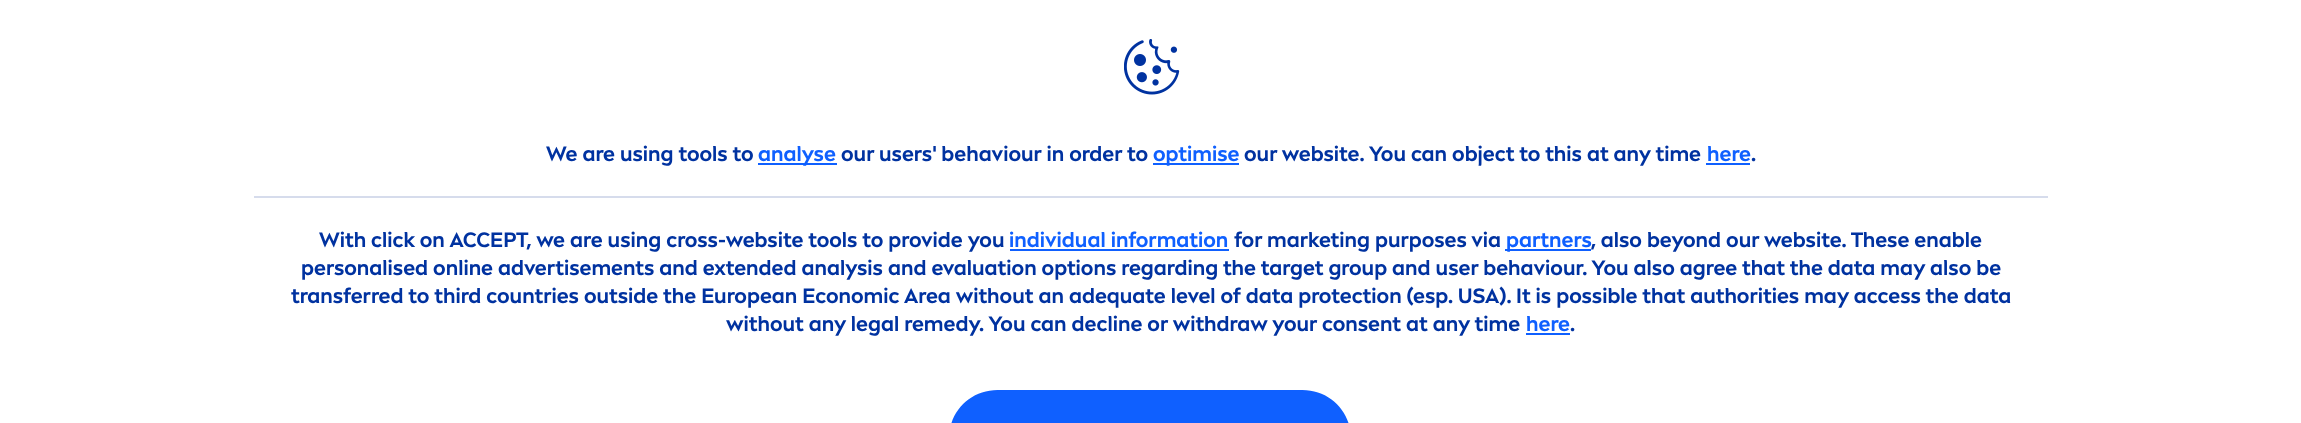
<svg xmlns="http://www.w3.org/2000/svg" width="2301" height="423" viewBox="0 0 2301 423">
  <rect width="100%" height="100%" fill="#ffffff"/>
  <image x="1124" y="39" width="56" height="56" href="img1.png"/>
  <rect x="254" y="196" width="1794" height="2" fill="#d6dcec"/>
  <text x="546" y="161" font-family="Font" font-size="21" font-weight="bold" fill="#0032a0">We are using tools to</text>
  <rect x="758" y="163" width="79" height="2" fill="#0f60ff"/>
  <text x="758" y="161" font-family="Font" font-size="21" font-weight="bold" fill="#0f60ff">analyse</text>
  <text x="841" y="161" font-family="Font" font-size="21" font-weight="bold" fill="#0032a0">our users' behaviour in order to</text>
  <rect x="1153" y="163" width="86" height="2" fill="#0f60ff"/>
  <text x="1153" y="161" font-family="Font" font-size="21" font-weight="bold" fill="#0f60ff">optimise</text>
  <text x="1244" y="161" font-family="Font" font-size="21" font-weight="bold" fill="#0032a0">our website. You can object to this at any time</text>
  <text x="1707" y="161" font-family="Font" font-size="21" font-weight="bold" fill="#0f60ff">here</text>
  <rect x="1706" y="163" width="44" height="2" fill="#0f60ff"/>
  <text x="1751" y="161" font-family="Font" font-size="21" font-weight="bold" fill="#0032a0">.</text>
  <text x="319" y="247" font-family="Font" font-size="21" font-weight="bold" fill="#0032a0">With click on ACCEPT, we are using cross-website tools to provide you</text>
  <text x="1009" y="247" font-family="Font" font-size="21" font-weight="bold" fill="#0f60ff">individual information</text>
  <rect x="1010" y="249" width="219" height="2" fill="#0f60ff"/>
  <text x="1234" y="247" font-family="Font" font-size="21" font-weight="bold" fill="#0032a0">for marketing purposes via</text>
  <rect x="1505" y="249" width="86" height="2" fill="#0f60ff"/>
  <text x="1506" y="247" font-family="Font" font-size="21" font-weight="bold" fill="#0f60ff">partners</text>
  <text x="1591" y="247" font-family="Font" font-size="21" font-weight="bold" fill="#0032a0">, also beyond our website. These enable</text>
  <text x="301" y="275" font-family="Font" font-size="21" font-weight="bold" fill="#0032a0">personalised online advertisements and extended analysis and evaluation options regarding the target group and user behaviour. You also agree that the data may also be</text>
  <text x="291" y="303" font-family="Font" font-size="21" font-weight="bold" fill="#0032a0">transferred to third countries outside the European Economic Area without an adequate level of data protection (esp. USA). It is possible that authorities may access the data</text>
  <text x="726" y="331" font-family="Font" font-size="21" font-weight="bold" fill="#0032a0">without any legal remedy. You can decline or withdraw your consent at any time</text>
  <text x="1526" y="331" font-family="Font" font-size="21" font-weight="bold" fill="#0f60ff">here</text>
  <rect x="1526" y="333" width="44" height="2" fill="#0f60ff"/>
  <text x="1570" y="331" font-family="Font" font-size="21" font-weight="bold" fill="#0032a0">.</text>
  <path d="M997.5 390H1302.5C1329.5 390 1351 411.5 1351 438.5V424H949V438.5C949 411.5 970.5 390 997.5 390Z" fill="#0f60ff"/>
</svg>
